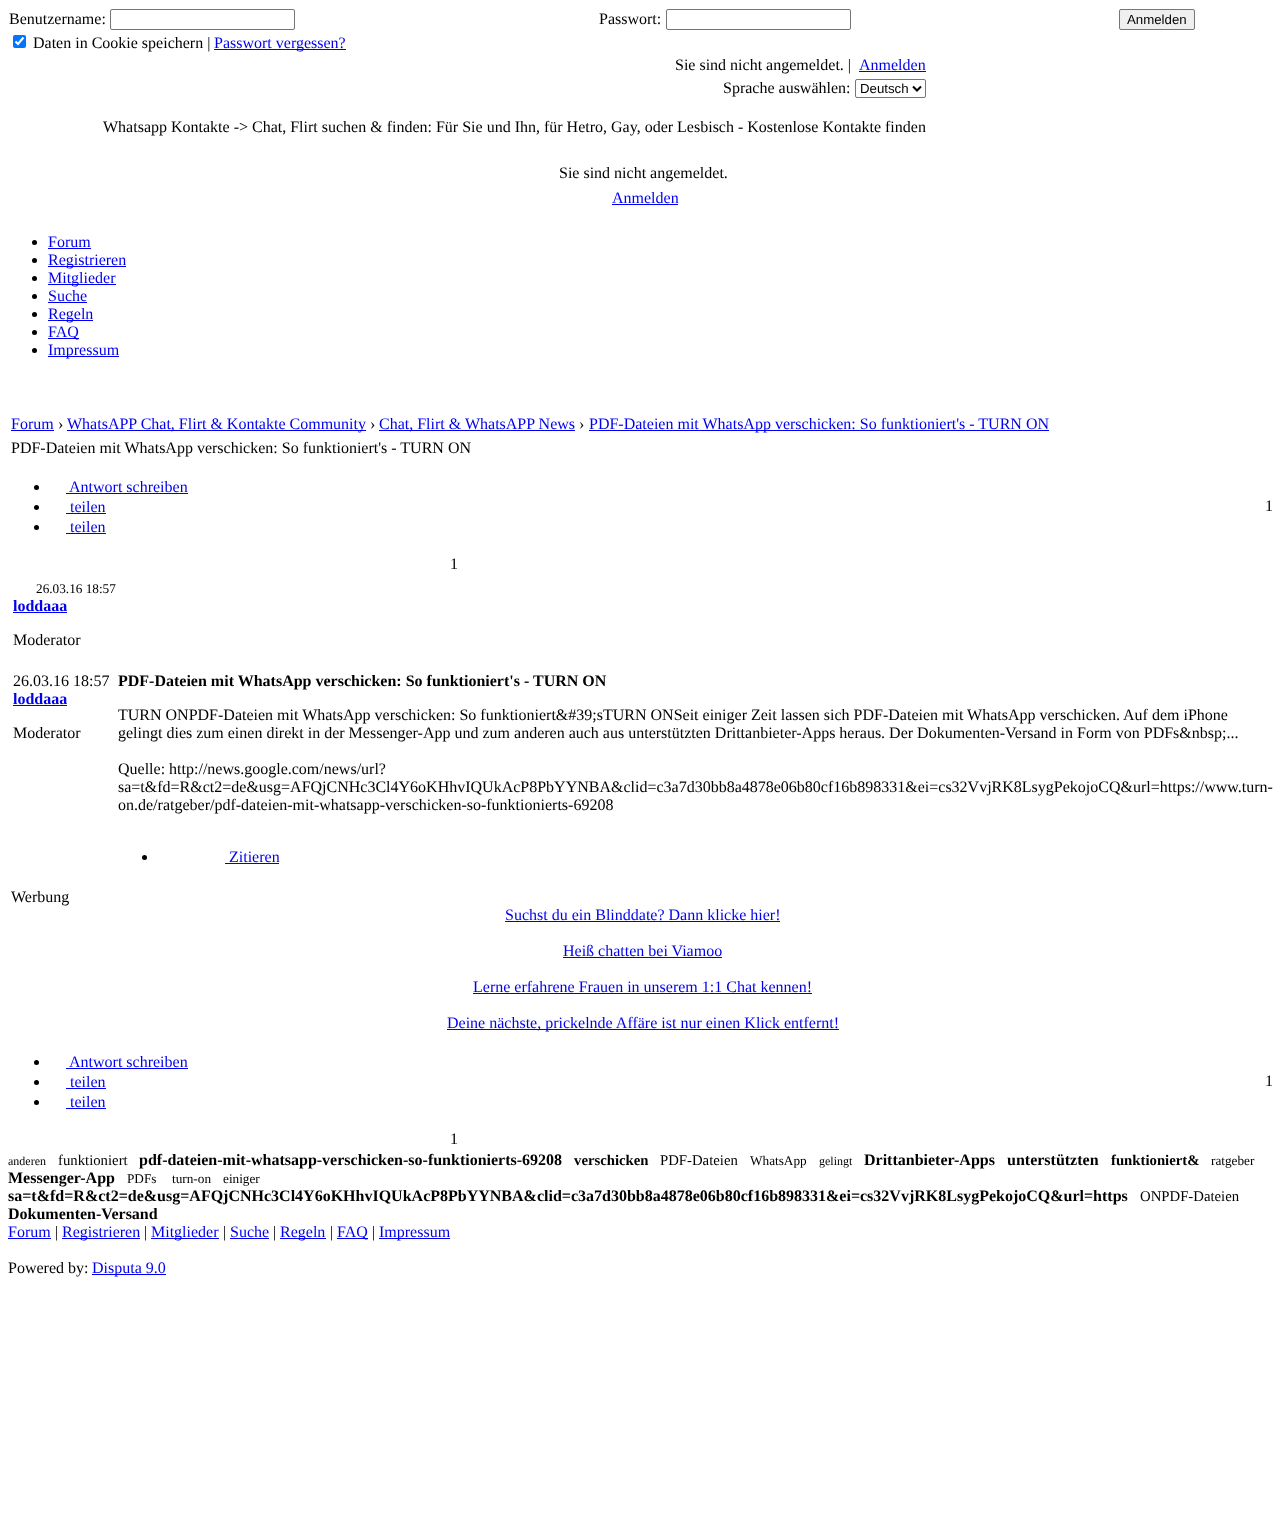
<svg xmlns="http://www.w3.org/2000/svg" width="1286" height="1514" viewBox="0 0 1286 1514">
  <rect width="100%" height="100%" fill="#ffffff"/>
  <text x="9" y="24" font-family="Liberation Serif" font-size="16" fill="#000000">Benutzername:</text>
  <rect x="110.5" y="9.5" width="184" height="20" rx="1.5" fill="none" stroke="#767676"/>
  <text x="599" y="24" font-family="Liberation Serif" font-size="16" fill="#000000">Passwort:</text>
  <rect x="666.5" y="9.5" width="184" height="20" rx="1.5" fill="none" stroke="#767676"/>
  <rect x="1119.5" y="9.5" width="75" height="20" rx="1.5" fill="#efefef" stroke="#767676"/>
  <text x="1127" y="24" font-family="Liberation Sans" font-size="13.25" fill="#000000">Anmelden</text>
  <rect x="13" y="35" width="13" height="13" rx="2" fill="#0075ff"/>
  <path d="M15.5 41.5L18 44L23.5 37.5" fill="none" stroke="#ffffff" stroke-width="2.1"/>
  <text x="33" y="48" font-family="Liberation Serif" font-size="16" fill="#000000">Daten in Cookie speichern |</text>
  <rect x="214" y="49" width="132" height="1" fill="#0000ee"/>
  <text x="214" y="48" font-family="Liberation Serif" font-size="16" fill="#0000ee">Passwort vergessen?</text>
  <text x="675" y="70" font-family="Liberation Serif" font-size="16" fill="#000000">Sie sind nicht angemeldet. |</text>
  <text x="859" y="70" font-family="Liberation Serif" font-size="16" fill="#0000ee">Anmelden</text>
  <rect x="859" y="71" width="67" height="1" fill="#0000ee"/>
  <text x="723" y="93" font-family="Liberation Serif" font-size="16" fill="#000000">Sprache auswählen:</text>
  <rect x="855.5" y="79.5" width="70" height="18" rx="1.5" fill="none" stroke="#767676"/>
  <path d="M913 86.5L917 90.5L921 86.5" fill="none" stroke="#000000" stroke-width="2"/>
  <text x="860" y="93" font-family="Liberation Sans" font-size="13.25" fill="#000000">Deutsch</text>
  <text x="103" y="132" font-family="Liberation Serif" font-size="16" fill="#000000">Whatsapp Kontakte -&gt; Chat, Flirt suchen &amp; finden: Für Sie und Ihn, für Hetro, Gay, oder Lesbisch - Kostenlose Kontakte finden</text>
  <text x="559" y="178" font-family="Liberation Serif" font-size="16" fill="#000000">Sie sind nicht angemeldet.</text>
  <text x="612" y="203" font-family="Liberation Serif" font-size="16" fill="#0000ee">Anmelden</text>
  <rect x="612" y="204" width="66" height="1" fill="#0000ee"/>
  <circle cx="34.5" cy="242.5" r="2.5" fill="#000000"/>
  <text x="48" y="247" font-family="Liberation Serif" font-size="16" fill="#0000ee">Forum</text>
  <rect x="48" y="248" width="43" height="1" fill="#0000ee"/>
  <circle cx="34.5" cy="260.5" r="2.5" fill="#000000"/>
  <rect x="48" y="266" width="78" height="1" fill="#0000ee"/>
  <text x="48" y="265" font-family="Liberation Serif" font-size="16" fill="#0000ee">Registrieren</text>
  <circle cx="34.5" cy="278.5" r="2.5" fill="#000000"/>
  <rect x="48" y="284" width="68" height="1" fill="#0000ee"/>
  <text x="48" y="283" font-family="Liberation Serif" font-size="16" fill="#0000ee">Mitglieder</text>
  <circle cx="34.5" cy="296.5" r="2.5" fill="#000000"/>
  <text x="48" y="301" font-family="Liberation Serif" font-size="16" fill="#0000ee">Suche</text>
  <rect x="48" y="302" width="39" height="1" fill="#0000ee"/>
  <circle cx="34.5" cy="314.5" r="2.5" fill="#000000"/>
  <rect x="48" y="320" width="45" height="1" fill="#0000ee"/>
  <text x="48" y="319" font-family="Liberation Serif" font-size="16" fill="#0000ee">Regeln</text>
  <circle cx="34.5" cy="332.5" r="2.5" fill="#000000"/>
  <rect x="48" y="338" width="31" height="1" fill="#0000ee"/>
  <text x="48" y="337" font-family="Liberation Serif" font-size="16" fill="#0000ee">FAQ</text>
  <circle cx="34.5" cy="350.5" r="2.5" fill="#000000"/>
  <rect x="48" y="356" width="71" height="1" fill="#0000ee"/>
  <text x="48" y="355" font-family="Liberation Serif" font-size="16" fill="#0000ee">Impressum</text>
  <text x="11" y="429" font-family="Liberation Serif" font-size="16" fill="#0000ee">Forum</text>
  <rect x="11" y="430" width="43" height="1" fill="#0000ee"/>
  <text x="58" y="429" font-family="Liberation Serif" font-size="16" fill="#000000">›</text>
  <rect x="67" y="430" width="299" height="1" fill="#0000ee"/>
  <text x="67" y="429" font-family="Liberation Serif" font-size="16" fill="#0000ee">WhatsAPP Chat, Flirt &amp; Kontakte Community</text>
  <text x="370" y="429" font-family="Liberation Serif" font-size="16" fill="#000000">›</text>
  <rect x="379" y="430" width="196" height="1" fill="#0000ee"/>
  <text x="379" y="429" font-family="Liberation Serif" font-size="16" fill="#0000ee">Chat, Flirt &amp; WhatsAPP News</text>
  <text x="579" y="429" font-family="Liberation Serif" font-size="16" fill="#000000">›</text>
  <rect x="589" y="430" width="460" height="1" fill="#0000ee"/>
  <text x="589" y="429" font-family="Liberation Serif" font-size="16" fill="#0000ee">PDF-Dateien mit WhatsApp verschicken: So funktioniert's - TURN ON</text>
  <text x="11" y="453" font-family="Liberation Serif" font-size="16" fill="#000000">PDF-Dateien mit WhatsApp verschicken: So funktioniert's - TURN ON</text>
  <circle cx="36.5" cy="487.5" r="2.5" fill="#000000"/>
  <text x="69" y="492" font-family="Liberation Serif" font-size="16" fill="#0000ee">Antwort schreiben</text>
  <rect x="66" y="493" width="122" height="1" fill="#0000ee"/>
  <circle cx="36.5" cy="507.5" r="2.5" fill="#000000"/>
  <text x="70" y="512" font-family="Liberation Serif" font-size="16" fill="#0000ee">teilen</text>
  <rect x="66" y="513" width="40" height="1" fill="#0000ee"/>
  <circle cx="36.5" cy="527.5" r="2.5" fill="#000000"/>
  <text x="70" y="532" font-family="Liberation Serif" font-size="16" fill="#0000ee">teilen</text>
  <rect x="66" y="533" width="40" height="1" fill="#0000ee"/>
  <text x="1265" y="511" font-family="Liberation Serif" font-size="16" fill="#000000">1</text>
  <text x="450" y="569" font-family="Liberation Serif" font-size="16" fill="#000000">1</text>
  <text x="36" y="593" font-family="Liberation Serif" font-size="13.25" fill="#000000">26.03.16 18:57</text>
  <text x="13" y="611" font-family="Liberation Serif" font-size="16" font-weight="bold" fill="#0000ee">loddaaa</text>
  <rect x="13" y="612" width="54" height="1" fill="#0000ee"/>
  <text x="13" y="645" font-family="Liberation Serif" font-size="16" fill="#000000">Moderator</text>
  <text x="13" y="686" font-family="Liberation Serif" font-size="16" fill="#000000">26.03.16 18:57</text>
  <text x="13" y="704" font-family="Liberation Serif" font-size="16" font-weight="bold" fill="#0000ee">loddaaa</text>
  <rect x="13" y="705" width="54" height="1" fill="#0000ee"/>
  <text x="13" y="738" font-family="Liberation Serif" font-size="16" fill="#000000">Moderator</text>
  <text x="118" y="686" font-family="Liberation Serif" font-size="16" font-weight="bold" fill="#000000">PDF-Dateien mit WhatsApp verschicken: So funktioniert's - TURN ON</text>
  <text x="118" y="720" font-family="Liberation Serif" font-size="16" fill="#000000">TURN ONPDF-Dateien mit WhatsApp verschicken: So funktioniert&amp;#39;sTURN ONSeit einiger Zeit lassen sich PDF-Dateien mit WhatsApp verschicken. Auf dem iPhone</text>
  <text x="118" y="738" font-family="Liberation Serif" font-size="16" fill="#000000">gelingt dies zum einen direkt in der Messenger-App und zum anderen auch aus unterstützten Drittanbieter-Apps heraus. Der Dokumenten-Versand in Form von PDFs&amp;nbsp;...</text>
  <text x="118" y="774" font-family="Liberation Serif" font-size="16" fill="#000000">Quelle: http://news.google.com/news/url?</text>
  <text x="118" y="792" font-family="Liberation Serif" font-size="16" fill="#000000">sa=t&amp;fd=R&amp;ct2=de&amp;usg=AFQjCNHc3Cl4Y6oKHhvIQUkAcP8PbYYNBA&amp;clid=c3a7d30bb8a4878e06b80cf16b898331&amp;ei=cs32VvjRK8LsygPekojoCQ&amp;url=https://www.turn-</text>
  <text x="118" y="810" font-family="Liberation Serif" font-size="16" fill="#000000">on.de/ratgeber/pdf-dateien-mit-whatsapp-verschicken-so-funktionierts-69208</text>
  <circle cx="144.5" cy="857.5" r="2.5" fill="#000000"/>
  <text x="229" y="862" font-family="Liberation Serif" font-size="16" fill="#0000ee">Zitieren</text>
  <rect x="225" y="863" width="54" height="1" fill="#0000ee"/>
  <text x="11" y="902" font-family="Liberation Serif" font-size="16" fill="#000000">Werbung</text>
  <text x="505" y="920" font-family="Liberation Serif" font-size="16" fill="#0000ee">Suchst du ein Blinddate? Dann klicke hier!</text>
  <rect x="505" y="921" width="275" height="1" fill="#0000ee"/>
  <text x="563" y="956" font-family="Liberation Serif" font-size="16" fill="#0000ee">Heiß chatten bei Viamoo</text>
  <rect x="563" y="957" width="159" height="1" fill="#0000ee"/>
  <text x="473" y="992" font-family="Liberation Serif" font-size="16" fill="#0000ee">Lerne erfahrene Frauen in unserem 1:1 Chat kennen!</text>
  <rect x="473" y="993" width="339" height="1" fill="#0000ee"/>
  <rect x="447" y="1029" width="392" height="1" fill="#0000ee"/>
  <text x="447" y="1028" font-family="Liberation Serif" font-size="16" fill="#0000ee">Deine nächste, prickelnde Affäre ist nur einen Klick entfernt!</text>
  <circle cx="36.5" cy="1062.5" r="2.5" fill="#000000"/>
  <text x="69" y="1067" font-family="Liberation Serif" font-size="16" fill="#0000ee">Antwort schreiben</text>
  <rect x="66" y="1068" width="122" height="1" fill="#0000ee"/>
  <circle cx="36.5" cy="1082.5" r="2.5" fill="#000000"/>
  <text x="70" y="1087" font-family="Liberation Serif" font-size="16" fill="#0000ee">teilen</text>
  <rect x="66" y="1088" width="40" height="1" fill="#0000ee"/>
  <circle cx="36.5" cy="1102.5" r="2.5" fill="#000000"/>
  <text x="70" y="1107" font-family="Liberation Serif" font-size="16" fill="#0000ee">teilen</text>
  <rect x="66" y="1108" width="40" height="1" fill="#0000ee"/>
  <text x="1265" y="1086" font-family="Liberation Serif" font-size="16" fill="#000000">1</text>
  <text x="450" y="1144" font-family="Liberation Serif" font-size="16" fill="#000000">1</text>
  <text x="8" y="1165" font-family="Liberation Serif" font-size="12" fill="#000000">anderen</text>
  <text x="58" y="1165" font-family="Liberation Serif" font-size="14.75" fill="#000000">funktioniert</text>
  <text x="139" y="1165" font-family="Liberation Serif" font-size="16" font-weight="bold" fill="#000000">pdf-dateien-mit-whatsapp-verschicken-so-funktionierts-69208</text>
  <text x="574" y="1165" font-family="Liberation Serif" font-size="14.75" font-weight="bold" fill="#000000">verschicken</text>
  <text x="660" y="1165" font-family="Liberation Serif" font-size="14.75" fill="#000000">PDF-Dateien</text>
  <text x="750" y="1165" font-family="Liberation Serif" font-size="13.25" fill="#000000">WhatsApp</text>
  <text x="819" y="1165" font-family="Liberation Serif" font-size="12" fill="#000000">gelingt</text>
  <text x="864" y="1165" font-family="Liberation Serif" font-size="16" font-weight="bold" fill="#000000">Drittanbieter-Apps</text>
  <text x="1007" y="1165" font-family="Liberation Serif" font-size="16" font-weight="bold" fill="#000000">unterstützten</text>
  <text x="1111" y="1165" font-family="Liberation Serif" font-size="14.75" font-weight="bold" fill="#000000">funktioniert&amp;</text>
  <text x="1211" y="1165" font-family="Liberation Serif" font-size="13.25" fill="#000000">ratgeber</text>
  <text x="8" y="1183" font-family="Liberation Serif" font-size="16" font-weight="bold" fill="#000000">Messenger-App</text>
  <text x="127" y="1183" font-family="Liberation Serif" font-size="13.25" fill="#000000">PDFs</text>
  <text x="172" y="1183" font-family="Liberation Serif" font-size="13.25" fill="#000000">turn-on</text>
  <text x="223" y="1183" font-family="Liberation Serif" font-size="13.25" fill="#000000">einiger</text>
  <text x="8" y="1201" font-family="Liberation Serif" font-size="16" font-weight="bold" fill="#000000">sa=t&amp;fd=R&amp;ct2=de&amp;usg=AFQjCNHc3Cl4Y6oKHhvIQUkAcP8PbYYNBA&amp;clid=c3a7d30bb8a4878e06b80cf16b898331&amp;ei=cs32VvjRK8LsygPekojoCQ&amp;url=https</text>
  <text x="1140" y="1201" font-family="Liberation Serif" font-size="14.75" fill="#000000">ONPDF-Dateien</text>
  <text x="8" y="1219" font-family="Liberation Serif" font-size="16" font-weight="bold" fill="#000000">Dokumenten-Versand</text>
  <text x="8" y="1237" font-family="Liberation Serif" font-size="16" fill="#0000ee">Forum</text>
  <rect x="8" y="1238" width="43" height="1" fill="#0000ee"/>
  <text x="55" y="1237" font-family="Liberation Serif" font-size="16" fill="#000000">|</text>
  <rect x="62" y="1238" width="78" height="1" fill="#0000ee"/>
  <text x="62" y="1237" font-family="Liberation Serif" font-size="16" fill="#0000ee">Registrieren</text>
  <text x="144" y="1237" font-family="Liberation Serif" font-size="16" fill="#000000">|</text>
  <rect x="151" y="1238" width="68" height="1" fill="#0000ee"/>
  <text x="151" y="1237" font-family="Liberation Serif" font-size="16" fill="#0000ee">Mitglieder</text>
  <text x="223" y="1237" font-family="Liberation Serif" font-size="16" fill="#000000">|</text>
  <text x="230" y="1237" font-family="Liberation Serif" font-size="16" fill="#0000ee">Suche</text>
  <rect x="230" y="1238" width="39" height="1" fill="#0000ee"/>
  <text x="273" y="1237" font-family="Liberation Serif" font-size="16" fill="#000000">|</text>
  <rect x="280" y="1238" width="46" height="1" fill="#0000ee"/>
  <text x="280" y="1237" font-family="Liberation Serif" font-size="16" fill="#0000ee">Regeln</text>
  <text x="330" y="1237" font-family="Liberation Serif" font-size="16" fill="#000000">|</text>
  <rect x="337" y="1238" width="31" height="1" fill="#0000ee"/>
  <text x="337" y="1237" font-family="Liberation Serif" font-size="16" fill="#0000ee">FAQ</text>
  <text x="372" y="1237" font-family="Liberation Serif" font-size="16" fill="#000000">|</text>
  <rect x="379" y="1238" width="71" height="1" fill="#0000ee"/>
  <text x="379" y="1237" font-family="Liberation Serif" font-size="16" fill="#0000ee">Impressum</text>
  <text x="8" y="1273" font-family="Liberation Serif" font-size="16" fill="#000000">Powered by:</text>
  <rect x="92" y="1274" width="74" height="1" fill="#0000ee"/>
  <text x="92" y="1273" font-family="Liberation Serif" font-size="16" fill="#0000ee">Disputa 9.0</text>
</svg>
